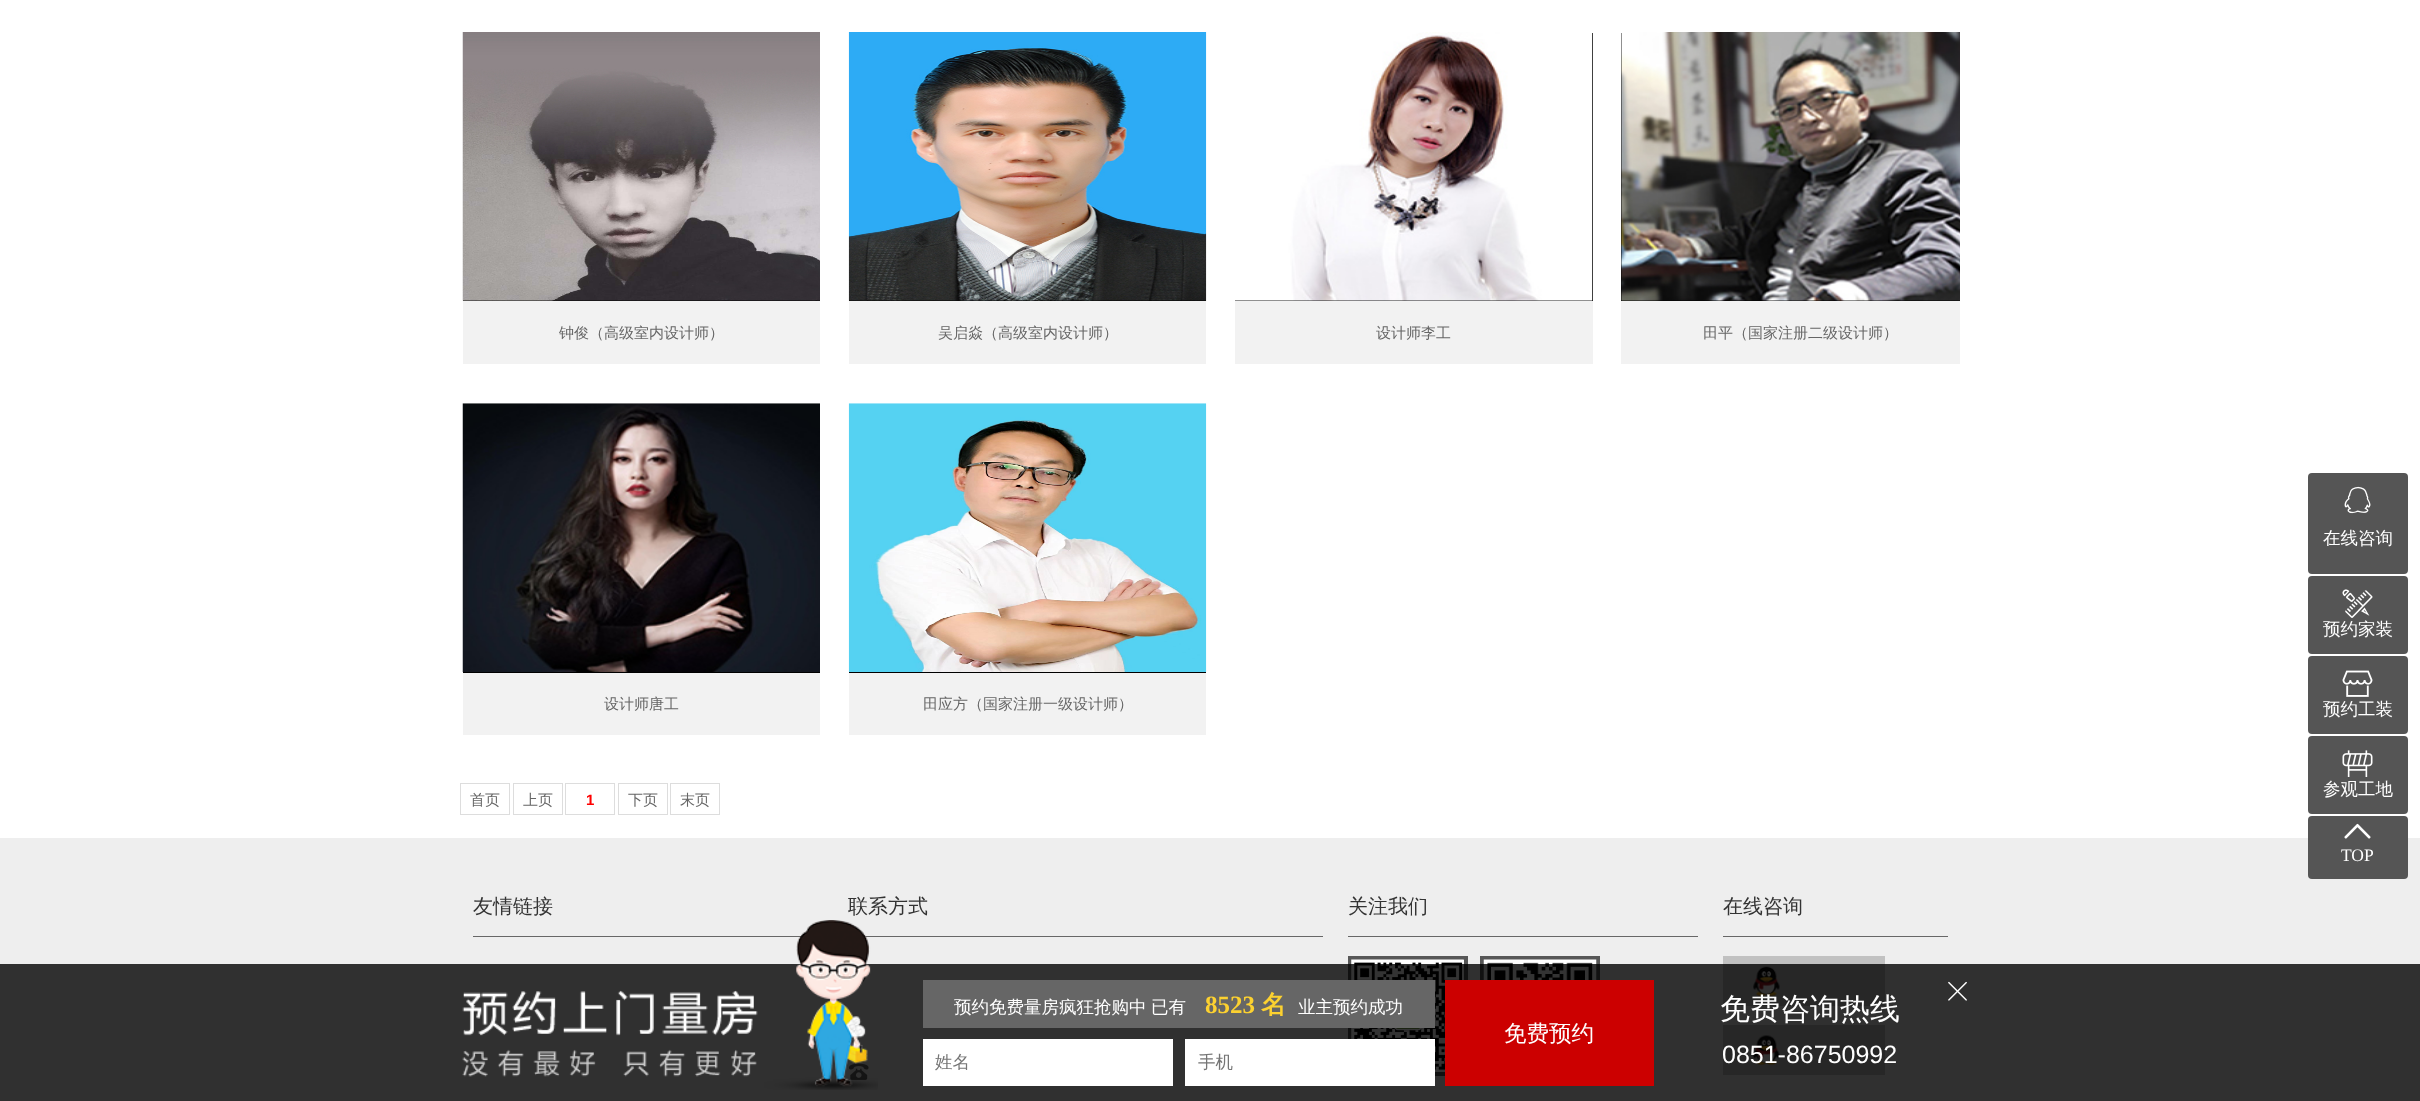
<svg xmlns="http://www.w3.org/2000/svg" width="2420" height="1101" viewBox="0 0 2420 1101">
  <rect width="100%" height="100%" fill="#ffffff"/>
  <rect x="463" y="300" width="357" height="1" fill="#000000"/>
  <image x="462" y="32" width="358" height="269" href="img1.png"/>
  <rect x="463" y="301" width="357" height="63" fill="#f2f2f2"/>
  <text x="559" y="338" font-family="WenQuanYi Zen Hei" font-size="15" font-weight="500" fill="#666666">钟俊（高级室内设计师）</text>
  <rect x="849" y="300" width="357" height="1" fill="#000000"/>
  <image x="848" y="32" width="359" height="269" href="img2.png"/>
  <rect x="849" y="301" width="357" height="63" fill="#f2f2f2"/>
  <text x="938" y="338" font-family="WenQuanYi Zen Hei" font-size="15" font-weight="500" fill="#666666">吴启焱（高级室内设计师）</text>
  <rect x="1235" y="33" width="358" height="268" fill="#000000"/>
  <image x="1235" y="32" width="358" height="269" href="img3.png"/>
  <rect x="1235" y="301" width="358" height="63" fill="#f2f2f2"/>
  <text x="1376" y="338" font-family="WenQuanYi Zen Hei" font-size="15" font-weight="500" fill="#666666">设计师李工</text>
  <rect x="1621" y="33" width="339" height="268" fill="#000000"/>
  <image x="1621" y="32" width="339" height="269" href="img4.png"/>
  <rect x="1621" y="301" width="339" height="63" fill="#f2f2f2"/>
  <text x="1703" y="338" font-family="WenQuanYi Zen Hei" font-size="15" font-weight="500" fill="#666666">田平（国家注册二级设计师）</text>
  <rect x="463" y="672" width="357" height="1" fill="#000000"/>
  <image x="462" y="403" width="358" height="269" href="img5.png"/>
  <rect x="463" y="673" width="357" height="62" fill="#f2f2f2"/>
  <text x="604" y="709" font-family="WenQuanYi Zen Hei" font-size="15" font-weight="500" fill="#666666">设计师唐工</text>
  <rect x="849" y="672" width="357" height="1" fill="#000000"/>
  <image x="848" y="403" width="359" height="269" href="img6.png"/>
  <rect x="849" y="673" width="357" height="62" fill="#f2f2f2"/>
  <text x="923" y="709" font-family="WenQuanYi Zen Hei" font-size="15" font-weight="500" fill="#666666">田应方（国家注册一级设计师）</text>
  <rect x="460.5" y="783.5" width="49" height="31" fill="none" stroke="#dddddd"/>
  <text x="470" y="805" font-family="WenQuanYi Zen Hei" font-size="15" font-weight="500" fill="#666666">首页</text>
  <rect x="513.5" y="783.5" width="49" height="31" fill="none" stroke="#dddddd"/>
  <text x="523" y="805" font-family="WenQuanYi Zen Hei" font-size="15" font-weight="500" fill="#666666">上页</text>
  <rect x="565.5" y="783.5" width="49" height="31" fill="none" stroke="#dddddd"/>
  <text x="586" y="805" font-family="Liberation Sans" font-size="15" font-weight="bold" fill="#ff0000">1</text>
  <rect x="618.5" y="783.5" width="49" height="31" fill="none" stroke="#dddddd"/>
  <text x="628" y="805" font-family="WenQuanYi Zen Hei" font-size="15" font-weight="500" fill="#666666">下页</text>
  <rect x="670.5" y="783.5" width="49" height="31" fill="none" stroke="#dddddd"/>
  <text x="680" y="805" font-family="WenQuanYi Zen Hei" font-size="15" font-weight="500" fill="#666666">末页</text>
  <rect x="2308" y="473" width="100" height="101" rx="4" fill="#555555"/>
  <image x="2344" y="486" width="27" height="28" href="img7.png"/>
  <text x="2323" y="544" font-family="WenQuanYi Zen Hei" font-size="17.5" font-weight="500" fill="#ffffff">在线咨询</text>
  <rect x="2308" y="576" width="100" height="78" rx="4" fill="#555555"/>
  <image x="2342" y="589" width="31" height="29" href="img8.png"/>
  <text x="2323" y="635" font-family="WenQuanYi Zen Hei" font-size="17.5" font-weight="500" fill="#ffffff">预约家装</text>
  <rect x="2308" y="656" width="100" height="78" rx="4" fill="#555555"/>
  <image x="2342" y="670" width="31" height="27" href="img9.png"/>
  <text x="2323" y="715" font-family="WenQuanYi Zen Hei" font-size="17.5" font-weight="500" fill="#ffffff">预约工装</text>
  <rect x="2308" y="736" width="100" height="78" rx="4" fill="#555555"/>
  <image x="2342" y="750" width="31" height="27" href="img10.png"/>
  <text x="2323" y="795" font-family="WenQuanYi Zen Hei" font-size="17.5" font-weight="500" fill="#ffffff">参观工地</text>
  <rect x="0" y="838" width="2420" height="263" fill="#eeeeee"/>
  <rect x="2308" y="816" width="100" height="63" rx="4" fill="#555555"/>
  <image x="2344" y="823" width="27" height="16" href="img11.png"/>
  <text x="2341" y="861" font-family="Liberation Serif" font-size="17.5" fill="#ffffff">TOP</text>
  <rect x="473" y="936" width="329" height="1" fill="#676767"/>
  <text x="473" y="913" font-family="WenQuanYi Zen Hei" font-size="20" font-weight="500" fill="#333333">友情链接</text>
  <rect x="864" y="936" width="459" height="1" fill="#676767"/>
  <text x="848" y="913" font-family="WenQuanYi Zen Hei" font-size="20" font-weight="500" fill="#333333">联系方式</text>
  <image x="858" y="974" width="9" height="14" href="img12.png"/>
  <image x="848" y="1063" width="21" height="17" href="img13.png"/>
  <rect x="1348" y="936" width="350" height="1" fill="#676767"/>
  <text x="1348" y="913" font-family="WenQuanYi Zen Hei" font-size="20" font-weight="500" fill="#333333">关注我们</text>
  <rect x="1350" y="958" width="116" height="116" fill="none" stroke="#575757" stroke-width="4"/>
  <image x="1351" y="959" width="113" height="113" href="img14.png"/>
  <rect x="1482" y="958" width="116" height="116" fill="none" stroke="#575757" stroke-width="4"/>
  <image x="1483" y="959" width="114" height="21" href="img15.png"/>
  <rect x="1723" y="936" width="225" height="1" fill="#676767"/>
  <text x="1723" y="913" font-family="WenQuanYi Zen Hei" font-size="20" font-weight="500" fill="#333333">在线咨询</text>
  <rect x="1723" y="956" width="162" height="50" fill="#c1c1c1"/>
  <image x="1753" y="966" width="27" height="30" href="img16.png"/>
  <rect x="1723" y="1025" width="162" height="50" fill="#c1c1c1"/>
  <image x="1753" y="1035" width="27" height="30" href="img17.png"/>
  <rect x="0" y="964" width="2420" height="137" fill="#000000" fill-opacity="0.8"/>
  <image x="462" y="920" width="416" height="170" href="img18.png"/>
  <rect x="923" y="980" width="512" height="48" fill="#666666"/>
  <text x="954" y="1013" font-family="WenQuanYi Zen Hei" font-size="17.5" font-weight="500" fill="#ffffff">预约免费量房疯狂抢购中</text>
  <text x="1151" y="1013" font-family="WenQuanYi Zen Hei" font-size="17.5" font-weight="500" fill="#ffffff">已有</text>
  <text x="1205" y="1013" font-family="Liberation Serif" font-size="25" font-weight="bold" fill="#fcd130">8523</text>
  <text x="1261" y="1013" font-family="WenQuanYi Zen Hei" font-size="25" font-weight="bold" fill="#fcd130">名</text>
  <text x="1298" y="1013" font-family="WenQuanYi Zen Hei" font-size="17.5" font-weight="500" fill="#ffffff">业主预约成功</text>
  <rect x="1445" y="980" width="209" height="106" fill="#cc0000"/>
  <text x="1504" y="1041" font-family="WenQuanYi Zen Hei" font-size="22.5" font-weight="500" fill="#ffffff">免费预约</text>
  <rect x="923" y="1039" width="250" height="47" fill="#ffffff"/>
  <text x="935" y="1068" font-family="WenQuanYi Zen Hei" font-size="17.5" font-weight="500" fill="#757575">姓名</text>
  <rect x="1185" y="1039" width="250" height="47" fill="#ffffff"/>
  <text x="1198" y="1068" font-family="WenQuanYi Zen Hei" font-size="17.5" font-weight="500" fill="#757575">手机</text>
  <text x="1720" y="1019" font-family="WenQuanYi Zen Hei" font-size="30" font-weight="500" fill="#ffffff">免费咨询热线</text>
  <text x="1722" y="1063" font-family="Liberation Sans" font-size="25" fill="#ffffff">0851-86750992</text>
  <image x="1948" y="981" width="19" height="20" href="img19.png"/>
</svg>
